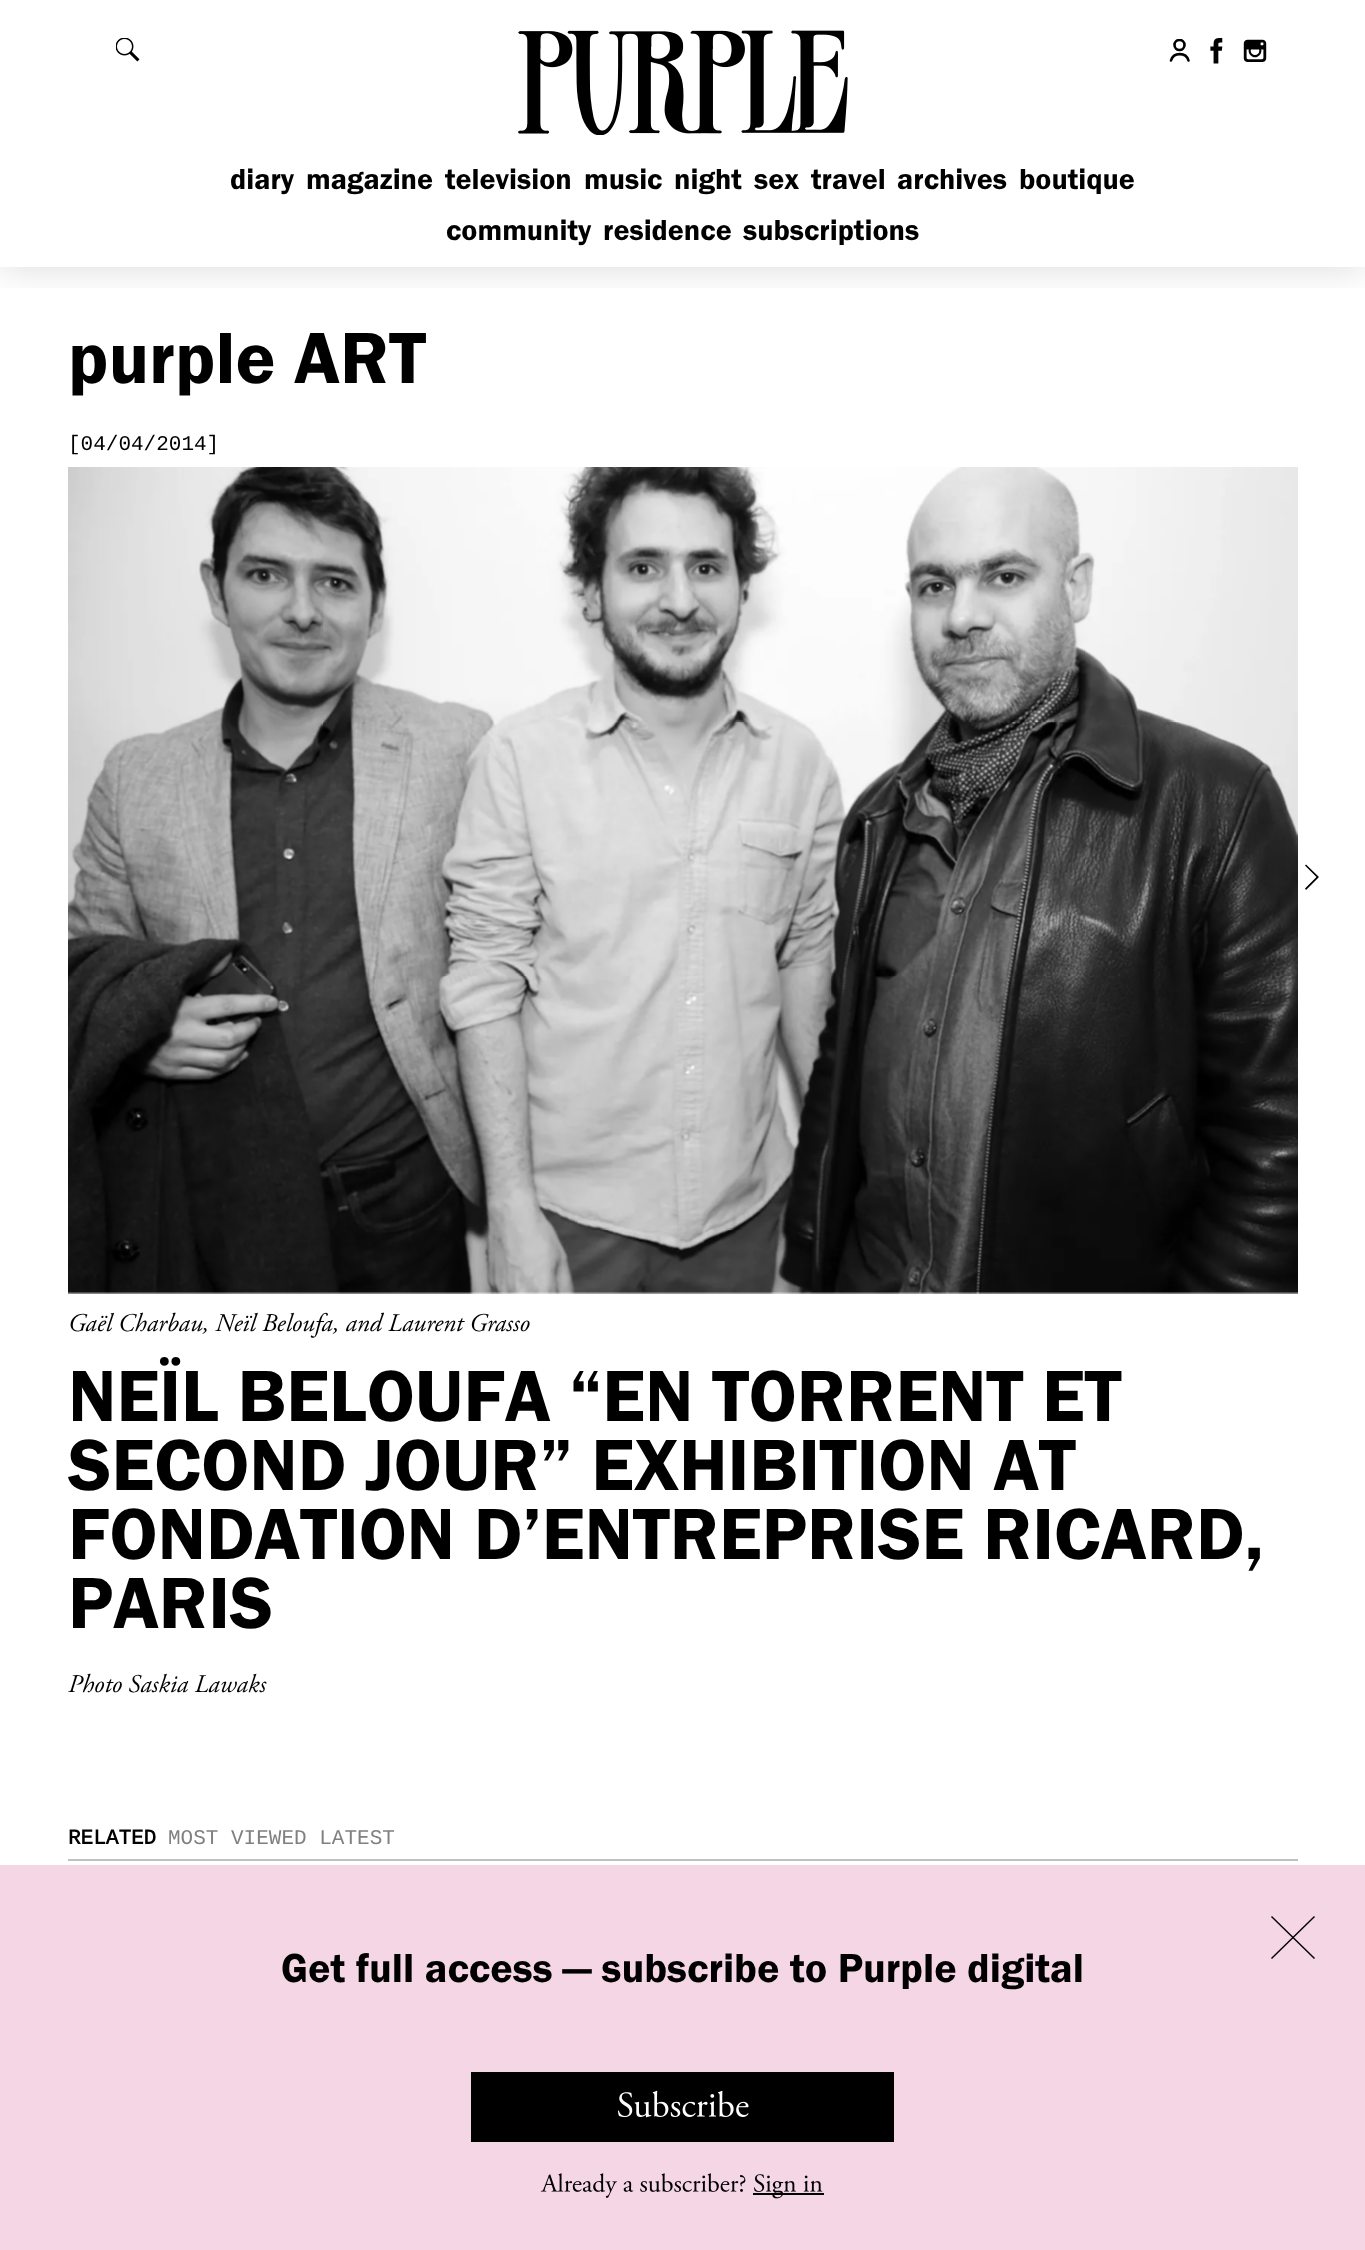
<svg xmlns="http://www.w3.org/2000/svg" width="1365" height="2250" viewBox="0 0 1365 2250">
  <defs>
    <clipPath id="clip1"><rect x="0" y="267" width="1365" height="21"/></clipPath>
    <filter id="blur1" x="-50%" y="-200%" width="200%" height="500%"><feGaussianBlur stdDeviation="19"/></filter>
    <clipPath id="clip2"><rect x="1169" y="39" width="22" height="23"/></clipPath>
  </defs>
  <rect width="100%" height="100%" fill="#ffffff"/>
  <g clip-path="url(#clip1)">
    <rect x="0" y="0" width="1365" height="267" fill="#000000" fill-opacity="0.15" filter="url(#blur1)"/>
  </g>
  <image x="518" y="30" width="330" height="105" href="img1.png"/>
  <image x="116" y="38" width="24" height="24" href="img2.png"/>
  <g clip-path="url(#clip2)">
    <circle cx="1179.5" cy="45" r="5" fill="none" stroke="#000000" stroke-width="2.6"/>
  </g>
  <path d="M1188.5 60.5C1186 52 1173.5 52 1171 60.5" fill="none" stroke="#000000" stroke-width="2.6" stroke-linecap="round"/>
  <text x="1204" y="62" font-family="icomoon" font-size="25.5" fill="#000000">1 3</text>
  <text x="230" y="189" font-family="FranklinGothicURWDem" font-size="30" fill="#000000">diary</text>
  <text x="306" y="189" font-family="FranklinGothicURWDem" font-size="30" fill="#000000">magazine</text>
  <text x="445" y="189" font-family="FranklinGothicURWDem" font-size="30" fill="#000000">television</text>
  <text x="584" y="189" font-family="FranklinGothicURWDem" font-size="30" fill="#000000">music</text>
  <text x="674" y="189" font-family="FranklinGothicURWDem" font-size="30" fill="#000000">night</text>
  <text x="754" y="189" font-family="FranklinGothicURWDem" font-size="30" fill="#000000">sex</text>
  <text x="811" y="189" font-family="FranklinGothicURWDem" font-size="30" fill="#000000">travel</text>
  <text x="897" y="189" font-family="FranklinGothicURWDem" font-size="30" fill="#000000">archives</text>
  <text x="1019" y="189" font-family="FranklinGothicURWDem" font-size="30" fill="#000000">boutique</text>
  <text x="446" y="240" font-family="FranklinGothicURWDem" font-size="30" fill="#000000">community</text>
  <text x="603" y="240" font-family="FranklinGothicURWDem" font-size="30" fill="#000000">residence</text>
  <text x="743" y="240" font-family="FranklinGothicURWDem" font-size="30" fill="#000000">subscriptions</text>
  <text x="68" y="383" font-family="FranklinGothicURWDem" font-size="75" fill="#000000">purple ART</text>
  <text x="68" y="450" font-family="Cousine" font-size="21" fill="#000000">[04/04/2014]</text>
  <image x="68" y="467" width="1230" height="827" href="img3.png"/>
  <path d="M1319 877L1306 864.5L1305 865.5L1316.5 877L1305 888.5L1306 890Z" fill="#000000"/>
  <text x="68" y="1331" font-family="Adobe Garamond" font-size="25.5" font-style="italic" fill="#000000">Gaël Charbau, Neïl Beloufa, and Laurent Grasso</text>
  <text x="68" y="1421" font-family="FranklinGothicURWDem" font-size="75" fill="#000000">NEÏL BELOUFA “EN TORRENT ET</text>
  <text x="68" y="1490" font-family="FranklinGothicURWDem" font-size="75" fill="#000000">SECOND JOUR” EXHIBITION AT</text>
  <text x="68" y="1559" font-family="FranklinGothicURWDem" font-size="75" fill="#000000">FONDATION D’ENTREPRISE RICARD,</text>
  <text x="68" y="1628" font-family="FranklinGothicURWDem" font-size="75" fill="#000000">PARIS</text>
  <text x="68" y="1692" font-family="Adobe Garamond" font-size="25.5" font-style="italic" fill="#000000">Photo Saskia Lawaks</text>
  <rect x="68" y="1859" width="1230" height="2" fill="#c0c0c0"/>
  <text x="68" y="1844" font-family="Cousine" font-size="21" font-weight="bold" fill="#000000">RELATED</text>
  <text x="168" y="1844" font-family="Cousine" font-size="21" fill="#808080">MOST VIEWED LATEST</text>
  <rect x="0" y="1865" width="1365" height="385" fill="#f4d6e4"/>
  <path d="M1272 1916L1315 1958L1314 1959L1271 1917Z" fill="#000000"/>
  <path d="M1271 1958L1314 1916L1315 1917L1272 1959Z" fill="#000000"/>
  <text x="281" y="1982" font-family="FranklinGothicURWDem" font-size="42" fill="#000000">Get full access — subscribe to Purple digital</text>
  <rect x="471" y="2072" width="423" height="70" fill="#000000"/>
  <image x="618" y="2090" width="131" height="28" href="img4.png"/>
  <image x="540" y="2173" width="206" height="25" href="img5.png"/>
  <rect x="753" y="2193" width="71" height="2" fill="#000000"/>
  <image x="754" y="2174" width="69" height="25" href="img6.png"/>
</svg>
